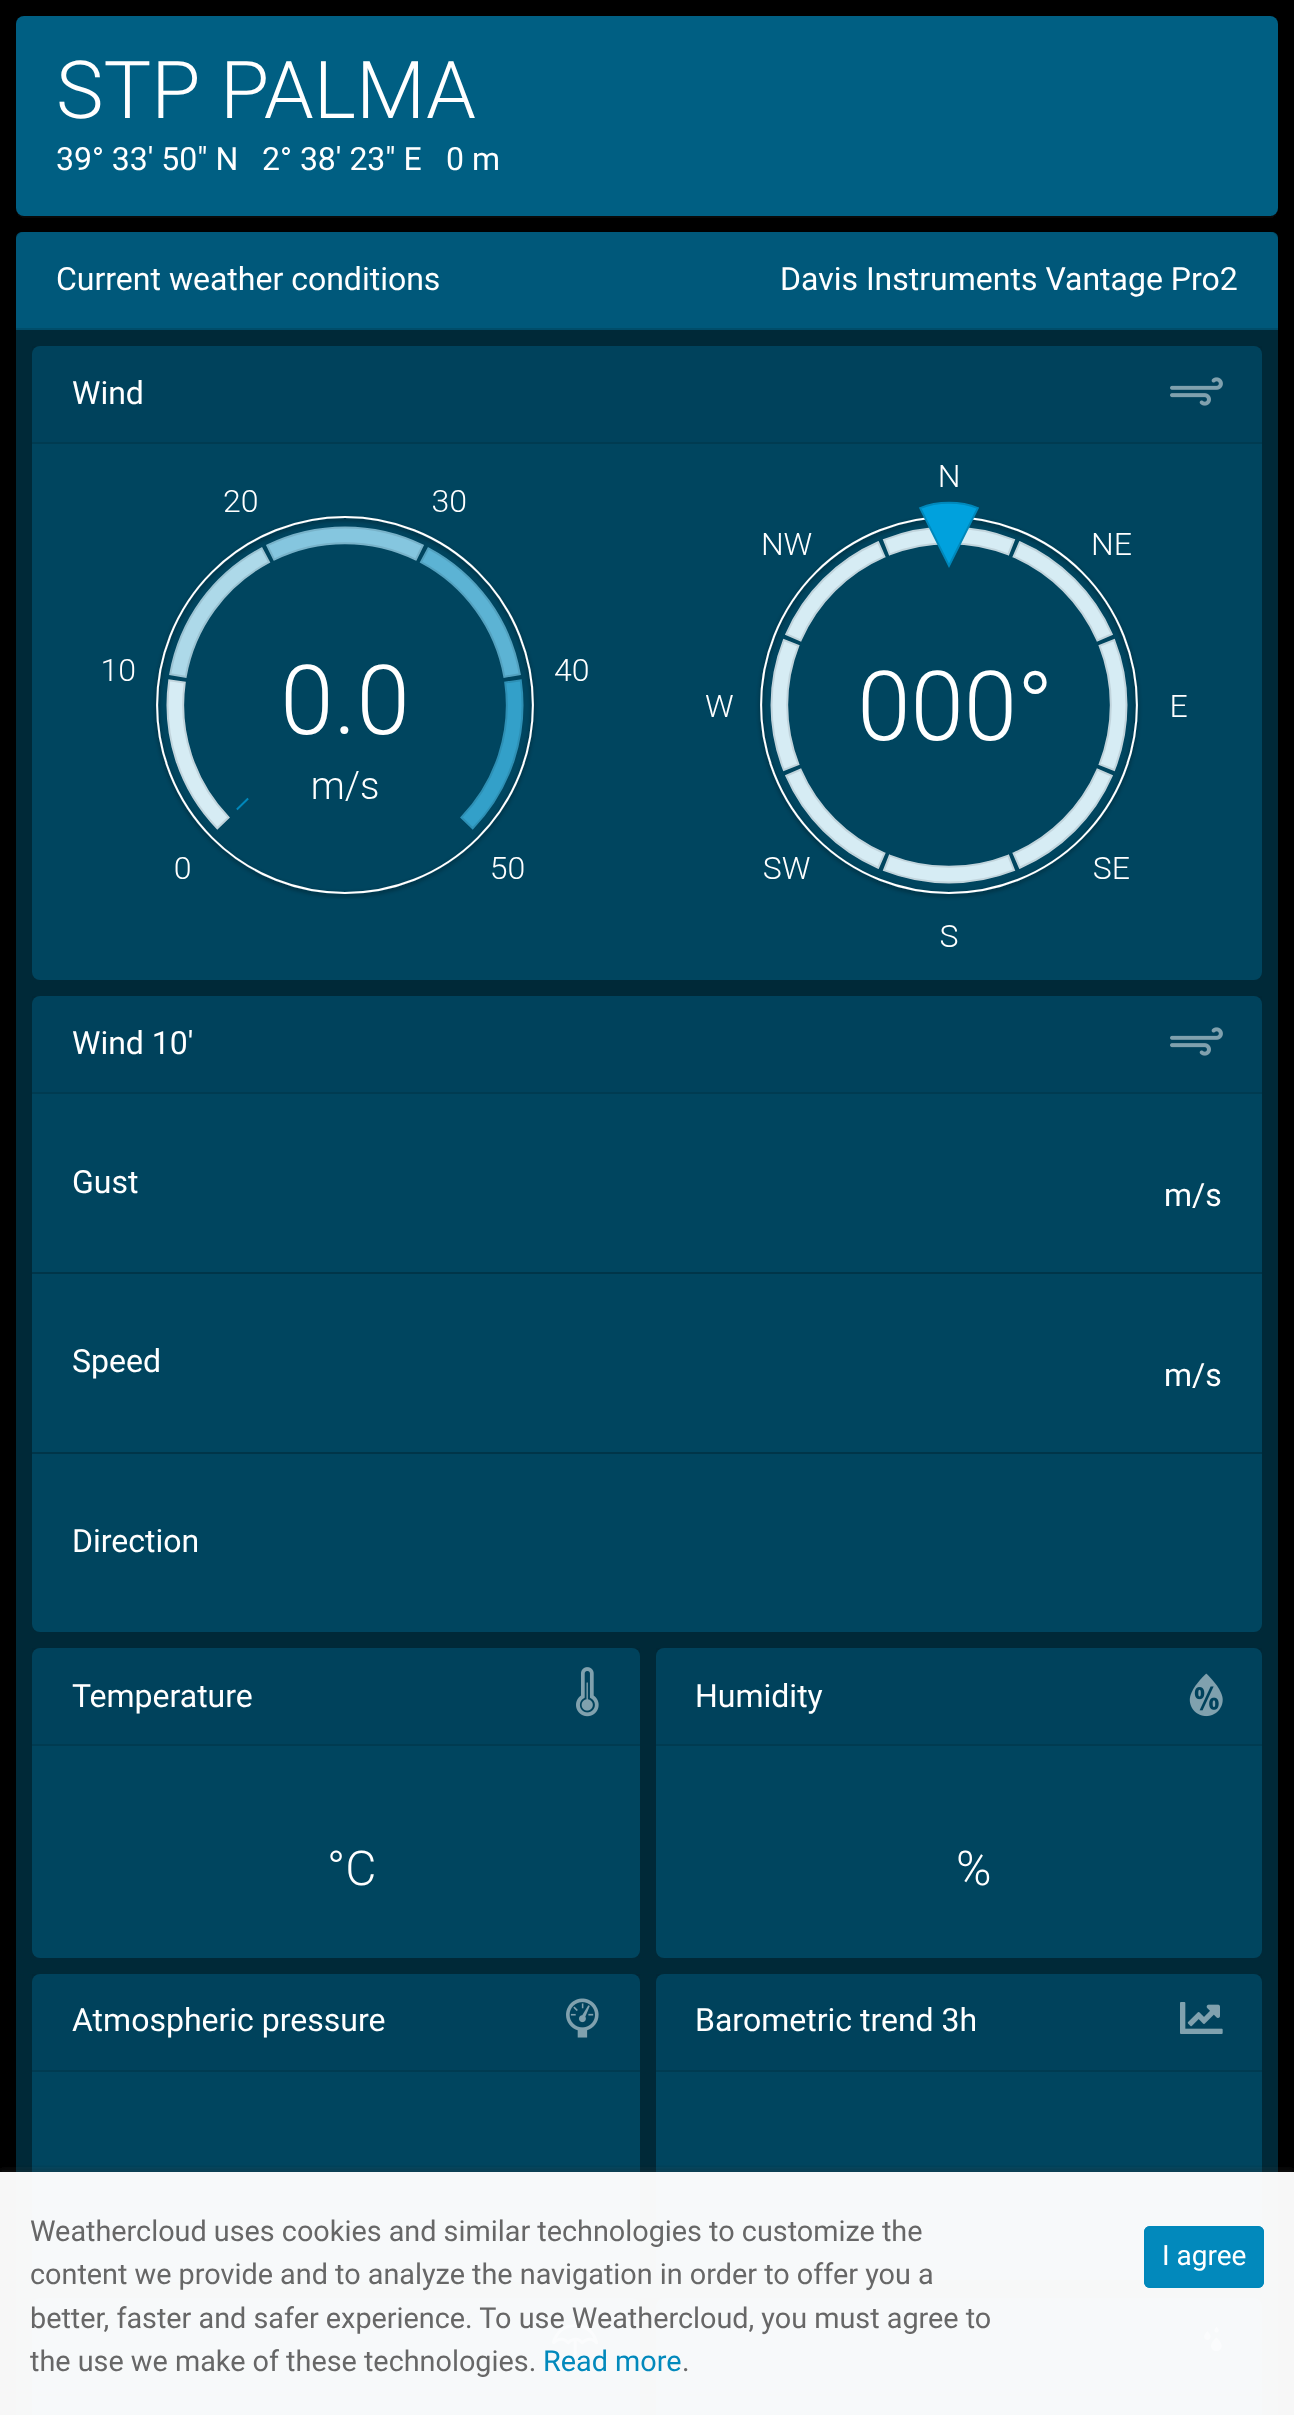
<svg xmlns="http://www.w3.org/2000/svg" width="1294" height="2415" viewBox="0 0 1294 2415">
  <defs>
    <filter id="blur1" x="-50%" y="-200%" width="200%" height="500%"><feGaussianBlur stdDeviation="5"/></filter>
    <clipPath id="clip1"><rect x="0" y="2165" width="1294" height="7"/></clipPath>
    <filter id="blur2" x="-50%" y="-200%" width="200%" height="500%"><feGaussianBlur stdDeviation="2"/></filter>
  </defs>
  <rect width="100%" height="100%" fill="#000000"/>
  <rect x="16" y="18" width="1262" height="200" rx="8" fill="#191919" fill-opacity="0.4" filter="url(#blur1)"/>
  <rect x="16" y="16" width="1262" height="200" rx="8" fill="#005f83"/>
  <text x="56" y="118" font-family="Roboto" font-size="80" font-weight="300" fill="#ffffff">STP PALMA</text>
  <text x="56" y="170" font-family="Roboto" font-size="32" fill="#ffffff">39° 33' 50" N</text>
  <text x="262" y="170" font-family="Roboto" font-size="32" fill="#ffffff">2° 38' 23" E</text>
  <text x="446" y="170" font-family="Roboto" font-size="32" fill="#ffffff">0 m</text>
  <rect x="16" y="234" width="1262" height="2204" rx="8" fill="#191919" fill-opacity="0.4" filter="url(#blur1)"/>
  <rect x="16" y="232" width="1262" height="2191" rx="8" fill="#002938"/>
  <path d="M22 232H1272C1275.5 232 1278 234.5 1278 238V330H16V238C16 234.5 18.5 232 22 232Z" fill="#0088bb" fill-opacity="0.5"/>
  <rect x="16" y="328" width="1262" height="2" fill="#004d6a"/>
  <text x="56" y="290" font-family="Roboto" font-size="32" fill="#ffffff">Current weather conditions</text>
  <text x="780" y="290" font-family="Roboto" font-size="32" fill="#ffffff">Davis Instruments Vantage Pro2</text>
  <rect x="32" y="346" width="1230" height="634" rx="8" fill="#0088bb" fill-opacity="0.3"/>
  <rect x="32" y="346" width="1230" height="96" fill="#000000" fill-opacity="0.03"/>
  <rect x="32" y="442" width="1230" height="2" fill="#003b51"/>
  <text x="72" y="404" font-family="Roboto" font-size="32" fill="#ffffff">Wind</text>
  <image x="1170" y="377" width="53" height="29" href="img1.png"/>
  <image x="103" y="490" width="485" height="409" href="img2.png"/>
  <image x="706" y="465" width="481" height="482" href="img3.png"/>
  <rect x="32" y="996" width="1230" height="636" rx="8" fill="#0088bb" fill-opacity="0.3"/>
  <rect x="32" y="996" width="1230" height="96" fill="#000000" fill-opacity="0.03"/>
  <rect x="32" y="1092" width="1230" height="2" fill="#003b51"/>
  <text x="72" y="1054" font-family="Roboto" font-size="32" fill="#ffffff">Wind 10'</text>
  <image x="1170" y="1027" width="53" height="29" href="img1.png"/>
  <text x="72" y="1193" font-family="Roboto" font-size="32" fill="#ffffff">Gust</text>
  <text x="1164" y="1206" font-family="Roboto" font-size="32" fill="#ffffff">m/s</text>
  <rect x="32" y="1272" width="1230" height="2" fill="#003549"/>
  <text x="72" y="1372" font-family="Roboto" font-size="32" fill="#ffffff">Speed</text>
  <text x="1164" y="1386" font-family="Roboto" font-size="32" fill="#ffffff">m/s</text>
  <rect x="32" y="1452" width="1230" height="2" fill="#003549"/>
  <text x="72" y="1552" font-family="Roboto" font-size="32" fill="#ffffff">Direction</text>
  <rect x="32" y="1648" width="608" height="310" rx="8" fill="#0088bb" fill-opacity="0.3"/>
  <rect x="32" y="1648" width="608" height="96" fill="#000000" fill-opacity="0.03"/>
  <rect x="32" y="1744" width="608" height="2" fill="#003b51"/>
  <text x="72" y="1707" font-family="Roboto" font-size="32" fill="#ffffff">Temperature</text>
  <image x="576" y="1667" width="23" height="50" href="img4.png"/>
  <text x="327" y="1885" font-family="Roboto" font-size="48" font-weight="300" fill="#ffffff">°C</text>
  <rect x="656" y="1648" width="606" height="310" rx="8" fill="#0088bb" fill-opacity="0.3"/>
  <rect x="656" y="1648" width="606" height="96" fill="#000000" fill-opacity="0.03"/>
  <rect x="656" y="1744" width="606" height="2" fill="#003b51"/>
  <text x="695" y="1707" font-family="Roboto" font-size="32" fill="#ffffff">Humidity</text>
  <image x="1189" y="1673" width="34" height="44" href="img5.png"/>
  <text x="956" y="1885" font-family="Roboto" font-size="48" font-weight="300" fill="#ffffff">%</text>
  <rect x="32" y="1974" width="608" height="308" rx="8" fill="#0088bb" fill-opacity="0.3"/>
  <rect x="32" y="1974" width="608" height="96" fill="#000000" fill-opacity="0.03"/>
  <rect x="32" y="2070" width="608" height="2" fill="#003b51"/>
  <text x="72" y="2031" font-family="Roboto" font-size="32" fill="#ffffff">Atmospheric pressure</text>
  <image x="566" y="1998" width="33" height="40" href="img6.png"/>
  <rect x="656" y="1974" width="606" height="306" rx="8" fill="#0088bb" fill-opacity="0.3"/>
  <rect x="656" y="1974" width="606" height="96" fill="#000000" fill-opacity="0.03"/>
  <rect x="656" y="2070" width="606" height="2" fill="#003b51"/>
  <text x="695" y="2031" font-family="Roboto" font-size="32" fill="#ffffff">Barometric trend 3h</text>
  <image x="1180" y="2002" width="43" height="32" href="img7.png"/>
  <rect x="32" y="2300" width="608" height="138" rx="8" fill="#191919" fill-opacity="0.4" filter="url(#blur1)"/>
  <rect x="32" y="2298" width="608" height="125" rx="8" fill="#00455f"/>
  <rect x="32" y="2298" width="608" height="96" fill="#000000" fill-opacity="0.03"/>
  <rect x="32" y="2394" width="608" height="2" fill="#003b51"/>
  <image x="552" y="2321" width="47" height="43" href="img8.png"/>
  <rect x="656" y="2300" width="606" height="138" rx="8" fill="#191919" fill-opacity="0.4" filter="url(#blur1)"/>
  <rect x="656" y="2298" width="606" height="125" rx="8" fill="#00455f"/>
  <rect x="656" y="2298" width="606" height="96" fill="#000000" fill-opacity="0.03"/>
  <rect x="656" y="2394" width="606" height="2" fill="#003b51"/>
  <image x="1204" y="2326" width="18" height="26" href="img9.png"/>
  <g clip-path="url(#clip1)">
    <rect x="0" y="2168" width="1294" height="244" fill="#323232" fill-opacity="0.24" filter="url(#blur2)"/>
  </g>
  <rect x="0" y="2172" width="1294" height="243" fill="#ffffff" fill-opacity="0.97"/>
  <text x="30" y="2241" font-family="Roboto" font-size="28.8" fill="#676767">Weathercloud uses cookies and similar technologies to customize the</text>
  <text x="30" y="2284" font-family="Roboto" font-size="28.8" fill="#676767">content we provide and to analyze the navigation in order to offer you a</text>
  <text x="30" y="2328" font-family="Roboto" font-size="28.8" fill="#676767">better, faster and safer experience. To use Weathercloud, you must agree to</text>
  <text x="30" y="2371" font-family="Roboto" font-size="28.8" fill="#676767">the use we make of these technologies.</text>
  <text x="543" y="2371" font-family="Roboto" font-size="28.8" fill="#0289bc">Read more</text>
  <text x="682" y="2371" font-family="Roboto" font-size="28.8" fill="#676767">.</text>
  <rect x="1144" y="2226" width="120" height="62" rx="6" fill="#0289bc"/>
  <rect x="1145" y="2227" width="118" height="60" rx="5" fill="none" stroke="#0088bb" stroke-opacity="0.99" stroke-width="2"/>
  <text x="1162" y="2265" font-family="Roboto" font-size="28" fill="#ffffff">I agree</text>
</svg>
